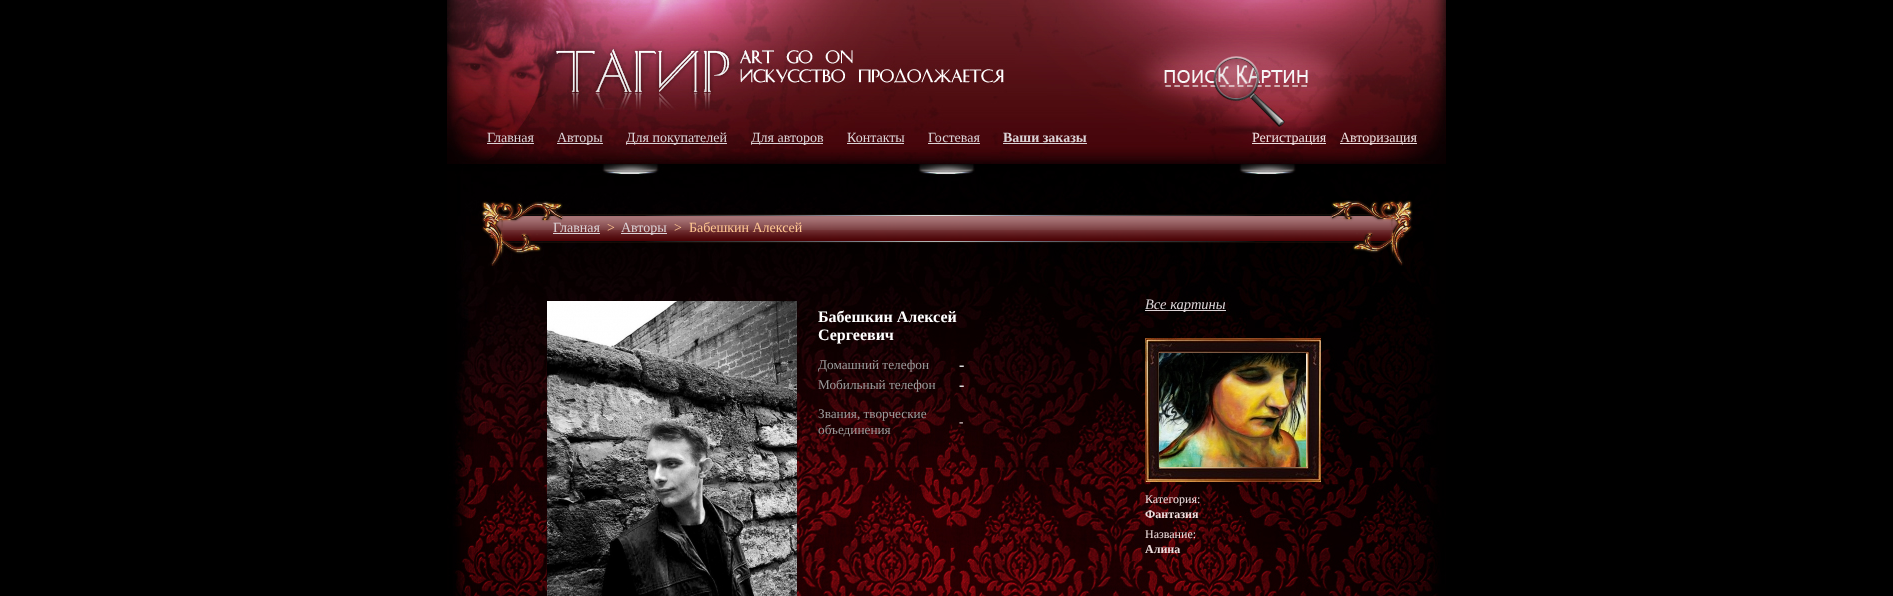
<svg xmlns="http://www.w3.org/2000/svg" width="1893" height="596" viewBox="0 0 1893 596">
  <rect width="100%" height="100%" fill="#000000"/>
  <image x="447" y="0" width="999" height="596" href="img1.png"/>
  <text x="487" y="142" font-family="Liberation Serif" font-size="14" fill="#dcd4d7">Главная</text>
  <rect x="487" y="143" width="47" height="1" fill="#dcd4d7"/>
  <rect x="557" y="143" width="46" height="1" fill="#dcd4d7"/>
  <text x="557" y="142" font-family="Liberation Serif" font-size="14" fill="#dcd4d7">Авторы</text>
  <rect x="626" y="143" width="101" height="1" fill="#dcd4d7"/>
  <text x="626" y="142" font-family="Liberation Serif" font-size="14" fill="#dcd4d7">Для покупателей</text>
  <rect x="751" y="143" width="72" height="1" fill="#dcd4d7"/>
  <text x="751" y="142" font-family="Liberation Serif" font-size="14" fill="#dcd4d7">Для авторов</text>
  <text x="847" y="142" font-family="Liberation Serif" font-size="14" fill="#dcd4d7">Контакты</text>
  <rect x="847" y="143" width="57" height="1" fill="#dcd4d7"/>
  <text x="928" y="142" font-family="Liberation Serif" font-size="14" fill="#dcd4d7">Гостевая</text>
  <rect x="928" y="143" width="52" height="1" fill="#dcd4d7"/>
  <text x="1003" y="142" font-family="Liberation Serif" font-size="14" font-weight="bold" fill="#dcd4d7">Ваши заказы</text>
  <rect x="1003" y="143" width="84" height="1" fill="#dcd4d7"/>
  <rect x="1252" y="143" width="74" height="1" fill="#eedfdf"/>
  <text x="1252" y="142" font-family="Liberation Serif" font-size="14" fill="#eedfdf">Регистрация</text>
  <rect x="1340" y="143" width="77" height="1" fill="#eedfdf"/>
  <text x="1340" y="142" font-family="Liberation Serif" font-size="14" fill="#eedfdf">Авторизация</text>
  <image x="481" y="200" width="932" height="66" href="img2.png"/>
  <text x="553" y="232" font-family="Liberation Serif" font-size="14" fill="#dcd4d7">Главная</text>
  <rect x="553" y="233" width="47" height="1" fill="#dcd4d7"/>
  <text x="607" y="232" font-family="Liberation Serif" font-size="14" fill="#ffc792">&gt;</text>
  <rect x="621" y="233" width="46" height="1" fill="#dcd4d7"/>
  <text x="621" y="232" font-family="Liberation Serif" font-size="14" fill="#dcd4d7">Авторы</text>
  <text x="674" y="232" font-family="Liberation Serif" font-size="14" fill="#ffc792">&gt;</text>
  <text x="689" y="232" font-family="Liberation Serif" font-size="14" fill="#ffc792">Бабешкин Алексей</text>
  <image x="547" y="301" width="250" height="295" href="img3.png"/>
  <text x="818" y="322" font-family="Liberation Serif" font-size="16" font-weight="bold" fill="#ffffff">Бабешкин Алексей</text>
  <text x="818" y="340" font-family="Liberation Serif" font-size="16" font-weight="bold" fill="#ffffff">Сергеевич</text>
  <text x="818" y="369" font-family="Liberation Serif" font-size="13.25" fill="#9a9a9a">Домашний телефон</text>
  <text x="959" y="370" font-family="Liberation Serif" font-size="16" fill="#ffffff">-</text>
  <text x="818" y="389" font-family="Liberation Serif" font-size="13.25" fill="#9a9a9a">Мобильный телефон</text>
  <text x="959" y="390" font-family="Liberation Serif" font-size="16" fill="#ffffff">-</text>
  <text x="818" y="418" font-family="Liberation Serif" font-size="13.25" fill="#9a9a9a">Звания, творческие</text>
  <text x="818" y="434" font-family="Liberation Serif" font-size="13.25" fill="#9a9a9a">объединения</text>
  <text x="959" y="426" font-family="Liberation Serif" font-size="13.25" fill="#eedfdf">-</text>
  <rect x="1145" y="310" width="81" height="1" fill="#dcd4d7"/>
  <text x="1145" y="309" font-family="Liberation Serif" font-size="14.5" font-style="italic" fill="#dcd4d7">Все картины</text>
  <image x="1145" y="338" width="176" height="144" href="img4.png"/>
  <image x="1159" y="353" width="147" height="114" href="img5.png"/>
  <text x="1145" y="503" font-family="Liberation Serif" font-size="12" fill="#eedfdf">Категория:</text>
  <text x="1145" y="518" font-family="Liberation Serif" font-size="12" font-weight="bold" fill="#eedfdf">Фантазия</text>
  <text x="1145" y="538" font-family="Liberation Serif" font-size="12" fill="#eedfdf">Название:</text>
  <text x="1145" y="553" font-family="Liberation Serif" font-size="12" font-weight="bold" fill="#eedfdf">Алина</text>
</svg>
